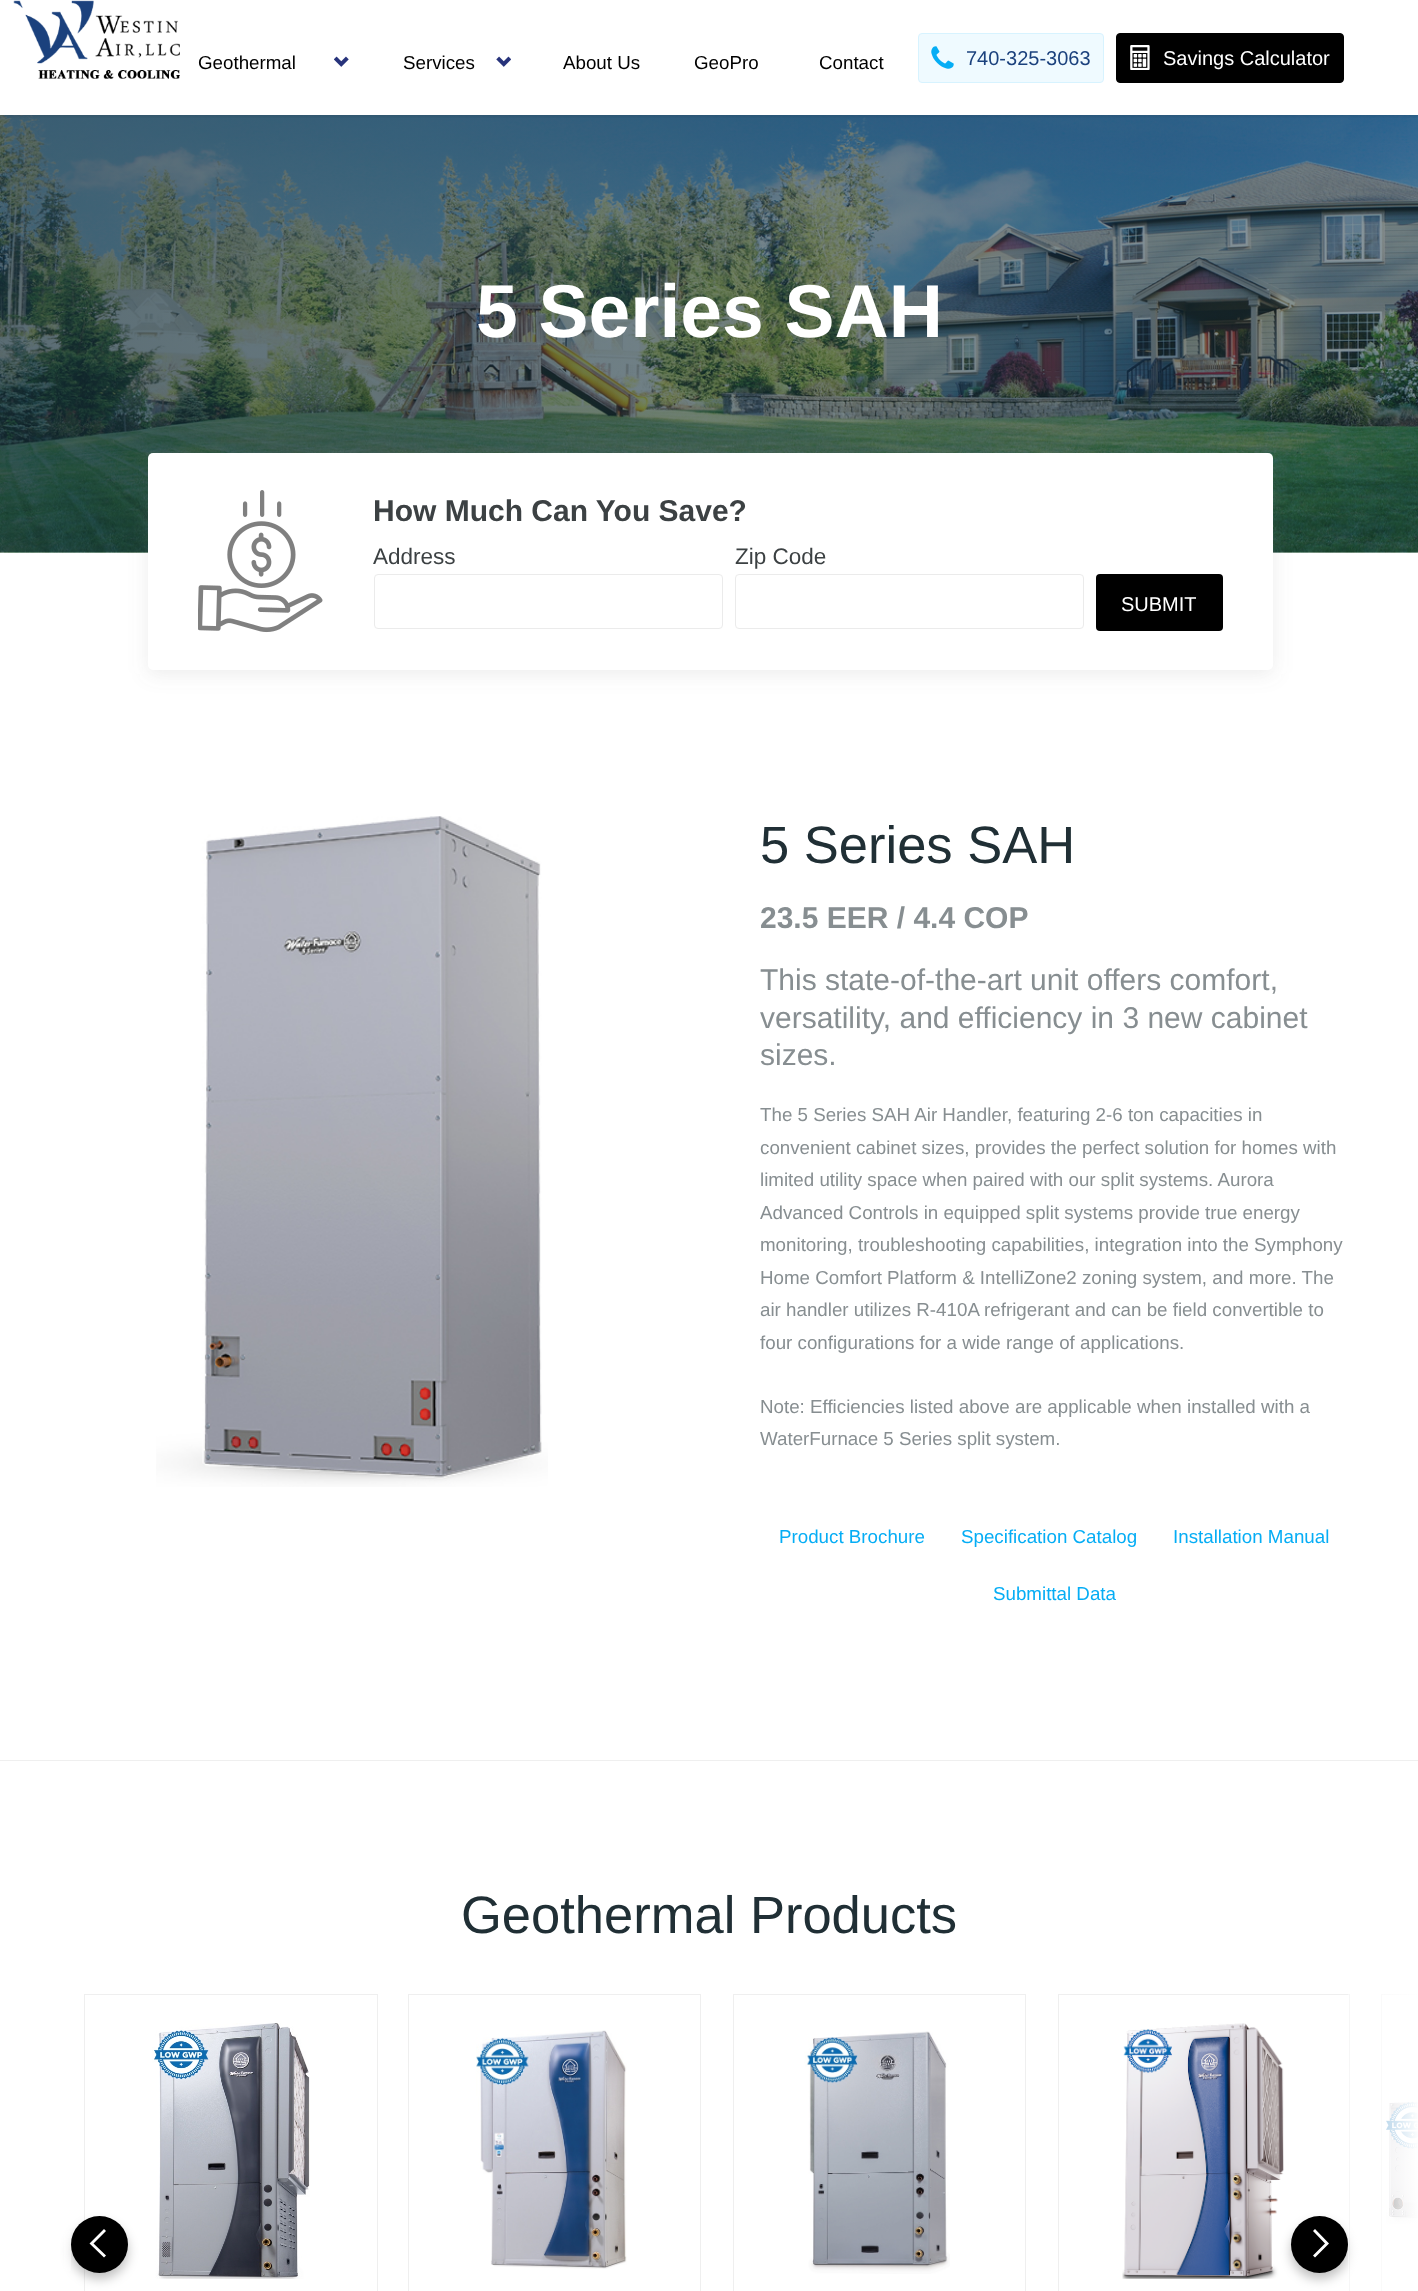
<svg xmlns="http://www.w3.org/2000/svg" width="1418" height="2291" viewBox="0 0 1418 2291">
  <defs>
    <clipPath id="clip1"><rect x="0" y="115" width="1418" height="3"/></clipPath>
    <filter id="blur1" x="-50%" y="-200%" width="200%" height="500%"><feGaussianBlur stdDeviation="2"/></filter>
    <filter id="blur2" x="-50%" y="-200%" width="200%" height="500%"><feGaussianBlur stdDeviation="9.5"/></filter>
    <filter id="blur3" x="-50%" y="-200%" width="200%" height="500%"><feGaussianBlur stdDeviation="5.5"/></filter>
    <linearGradient id="g1" gradientUnits="userSpaceOnUse" x1="0" y1="2244" x2="71" y2="2244"><stop offset="0" stop-color="#ffffff"/><stop offset="1" stop-color="#ffffff" stop-opacity="0.45"/></linearGradient>
    <linearGradient id="g2" gradientUnits="userSpaceOnUse" x1="1348" y1="2244" x2="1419" y2="2244"><stop offset="0" stop-color="#ffffff" stop-opacity="0.45"/><stop offset="1" stop-color="#ffffff"/></linearGradient>
  </defs>
  <rect width="100%" height="100%" fill="#ffffff"/>
  <image x="0" y="115" width="1418" height="438" href="img6.png"/>
  <g clip-path="url(#clip1)">
    <rect x="0" y="1" width="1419" height="115" fill="#000000" fill-opacity="0.12" filter="url(#blur1)"/>
  </g>
  <image x="13" y="0" width="167" height="79" href="img1.png"/>
  <text x="198" y="69" font-family="Liberation Sans" font-size="18.75" fill="#000000">Geothermal</text>
  <image x="334" y="56" width="15" height="11" href="img2.png"/>
  <text x="403" y="69" font-family="Liberation Sans" font-size="18.75" fill="#000000">Services</text>
  <image x="496" y="56" width="15" height="11" href="img3.png"/>
  <text x="563" y="69" font-family="Liberation Sans" font-size="18.75" fill="#000000">About Us</text>
  <text x="694" y="69" font-family="Liberation Sans" font-size="18.75" fill="#000000">GeoPro</text>
  <text x="819" y="69" font-family="Liberation Sans" font-size="18.75" fill="#000000">Contact</text>
  <rect x="918.5" y="33.5" width="185" height="49" rx="3.5" fill="#effaff" stroke="#d7f3ff"/>
  <image x="931" y="46" width="23" height="23" href="img4.png"/>
  <text x="966" y="65" font-family="Liberation Sans" font-size="20" fill="#1b417d">740-325-3063</text>
  <rect x="1116.5" y="33.5" width="227" height="49" rx="3.5" fill="#000000" stroke="#000000"/>
  <image x="1130" y="45" width="20" height="25" href="img5.png"/>
  <text x="1163" y="65" font-family="Liberation Sans" font-size="20" fill="#ffffff">Savings Calculator</text>
  <text x="476" y="337" font-family="Liberation Sans" font-size="75" font-weight="bold" fill="#ffffff">5 Series SAH</text>
  <rect x="148" y="456" width="1125" height="218" rx="5" fill="#808080" fill-opacity="0.15" filter="url(#blur2)"/>
  <rect x="148" y="453" width="1125" height="217" rx="5" fill="#ffffff"/>
  <image x="198" y="490" width="125" height="143" href="img7.png"/>
  <text x="373" y="521" font-family="Liberation Sans" font-size="30" font-weight="bold" fill="#3c4143">How Much Can You Save?</text>
  <text x="373" y="564" font-family="Liberation Sans" font-size="22.5" fill="#3c4143">Address</text>
  <rect x="374.5" y="574.5" width="348" height="54" rx="3.5" fill="none" stroke="#ebebeb"/>
  <text x="735" y="564" font-family="Liberation Sans" font-size="22.5" fill="#3c4143">Zip Code</text>
  <rect x="735.5" y="574.5" width="348" height="54" rx="3.5" fill="none" stroke="#ebebeb"/>
  <rect x="1096" y="574" width="127" height="57" rx="4" fill="#000000"/>
  <text x="1121" y="611" font-family="Liberation Sans" font-size="20" fill="#ffffff">SUBMIT</text>
  <image x="156" y="816" width="392" height="671" href="img8.png"/>
  <text x="760" y="863" font-family="Liberation Sans" font-size="52.5" fill="#202f35">5 Series SAH</text>
  <text x="760" y="928" font-family="Liberation Sans" font-size="30" font-weight="bold" fill="#878e91">23.5 EER / 4.4 COP</text>
  <text x="760" y="990" font-family="Liberation Sans" font-size="30" fill="#878e91">This state-of-the-art unit offers comfort,</text>
  <text x="760" y="1028" font-family="Liberation Sans" font-size="30" fill="#878e91">versatility, and efficiency in 3 new cabinet</text>
  <text x="760" y="1065" font-family="Liberation Sans" font-size="30" fill="#878e91">sizes.</text>
  <text x="760" y="1121" font-family="Liberation Sans" font-size="18.75" fill="#878e91">The 5 Series SAH Air Handler, featuring 2-6 ton capacities in</text>
  <text x="760" y="1154" font-family="Liberation Sans" font-size="18.75" fill="#878e91">convenient cabinet sizes, provides the perfect solution for homes with</text>
  <text x="760" y="1186" font-family="Liberation Sans" font-size="18.75" fill="#878e91">limited utility space when paired with our split systems. Aurora</text>
  <text x="760" y="1219" font-family="Liberation Sans" font-size="18.75" fill="#878e91">Advanced Controls in equipped split systems provide true energy</text>
  <text x="760" y="1251" font-family="Liberation Sans" font-size="18.75" fill="#878e91">monitoring, troubleshooting capabilities, integration into the Symphony</text>
  <text x="760" y="1284" font-family="Liberation Sans" font-size="18.75" fill="#878e91">Home Comfort Platform &amp; IntelliZone2 zoning system, and more. The</text>
  <text x="760" y="1316" font-family="Liberation Sans" font-size="18.75" fill="#878e91">air handler utilizes R-410A refrigerant and can be field convertible to</text>
  <text x="760" y="1349" font-family="Liberation Sans" font-size="18.75" fill="#878e91">four configurations for a wide range of applications.</text>
  <text x="760" y="1413" font-family="Liberation Sans" font-size="18.75" fill="#878e91">Note: Efficiencies listed above are applicable when installed with a</text>
  <text x="760" y="1445" font-family="Liberation Sans" font-size="18.75" fill="#878e91">WaterFurnace 5 Series split system.</text>
  <text x="779" y="1543" font-family="Liberation Sans" font-size="18.75" fill="#05adf5">Product Brochure</text>
  <text x="961" y="1543" font-family="Liberation Sans" font-size="18.75" fill="#05adf5">Specification Catalog</text>
  <text x="1173" y="1543" font-family="Liberation Sans" font-size="18.75" fill="#05adf5">Installation Manual</text>
  <text x="993" y="1600" font-family="Liberation Sans" font-size="18.75" fill="#05adf5">Submittal Data</text>
  <rect x="0" y="1760" width="1418" height="1" fill="#efefef"/>
  <text x="461" y="1933" font-family="Liberation Sans" font-size="52.5" fill="#202f35">Geothermal Products</text>
  <rect x="84.5" y="1994.5" width="293" height="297" fill="none" stroke="#efefef"/>
  <image x="152" y="2023" width="158" height="256" href="img9.png"/>
  <rect x="408.5" y="1994.5" width="292" height="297" fill="none" stroke="#efefef"/>
  <image x="476" y="2030" width="151" height="239" href="img10.png"/>
  <rect x="733.5" y="1994.5" width="292" height="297" fill="none" stroke="#efefef"/>
  <image x="804" y="2031" width="146" height="243" href="img11.png"/>
  <rect x="1058.5" y="1994.5" width="291" height="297" fill="none" stroke="#efefef"/>
  <image x="1122" y="2023" width="162" height="256" href="img12.png"/>
  <rect x="1381.5" y="1994.5" width="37" height="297" fill="none" stroke="#efefef"/>
  <image x="1386" y="2101" width="32" height="123" href="img13.png"/>
  <rect x="71" y="2223" width="57" height="56" rx="28" fill="#000000" fill-opacity="0.25" filter="url(#blur3)"/>
  <circle cx="99.5" cy="2244.5" r="28.5" fill="#000000"/>
  <path d="M89.5 2243.5L104 2229L106 2231L93.5 2243.5L106 2255.5L104 2257.5Z" fill="#ffffff"/>
  <rect x="1291" y="2223" width="57" height="56" rx="28" fill="#000000" fill-opacity="0.25" filter="url(#blur3)"/>
  <circle cx="1319.5" cy="2244.5" r="28.5" fill="#000000"/>
  <path d="M1329 2243.5L1315 2229L1313 2231L1325 2243.5L1313 2255.5L1315 2257.5Z" fill="#ffffff"/>
  <rect x="64" y="2231" width="7" height="40" fill="url(#g1)"/>
  <rect x="1348" y="1994" width="70" height="297" fill="url(#g2)"/>
</svg>
